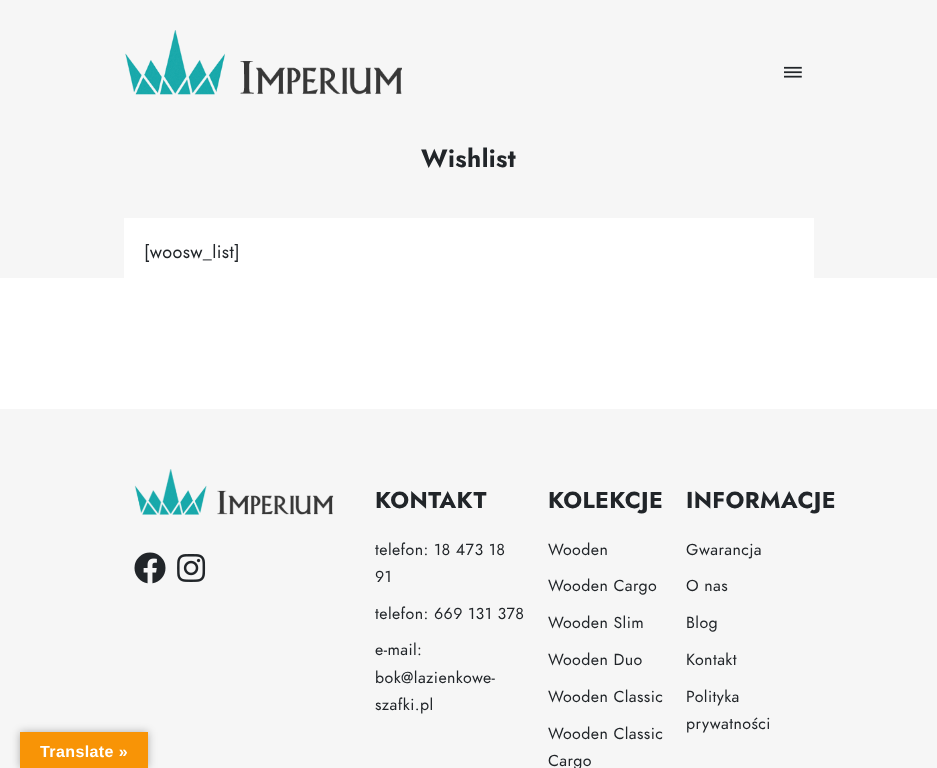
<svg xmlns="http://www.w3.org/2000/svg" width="937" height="768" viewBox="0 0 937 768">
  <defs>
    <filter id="blur1" x="-50%" y="-200%" width="200%" height="500%"><feGaussianBlur stdDeviation="4.5"/></filter>
  </defs>
  <rect width="100%" height="100%" fill="#ffffff"/>
  <rect x="0" y="409" width="937" height="359" fill="#f6f6f6"/>
  <rect x="20" y="732" width="128" height="36" fill="#000000" fill-opacity="0.3" filter="url(#blur1)"/>
  <rect x="20" y="732" width="128" height="36" fill="#f89406"/>
  <text x="40" y="757" font-family="Liberation Sans" font-size="16" font-weight="bold" letter-spacing="0.4" fill="#ffffff">Translate »</text>
  <rect x="0" y="0" width="937" height="278" fill="#f6f6f6"/>
  <image x="125" y="30" width="277" height="65" href="img1.png"/>
  <image x="784" y="66" width="18" height="12" href="img2.png"/>
  <text x="421" y="167" font-family="Jost" font-size="25" font-weight="bold" letter-spacing="0.4" fill="#212529">Wishlist</text>
  <rect x="124" y="218" width="690" height="60" fill="#ffffff"/>
  <text x="144" y="258" font-family="Jost" font-size="18" letter-spacing="0.4" fill="#212529">[woosw_list]</text>
  <image x="134" y="469" width="200" height="46" href="img3.png"/>
  <image x="134" y="552" width="32" height="32" href="img4.png"/>
  <image x="177" y="554" width="29" height="28" href="img5.png"/>
  <text x="375" y="508" font-family="Jost" font-size="23" font-weight="bold" letter-spacing="0.4" fill="#212529">KONTAKT</text>
  <text x="375" y="555" font-family="Jost" font-size="16" letter-spacing="0.4" fill="#212529">telefon: 18 473 18</text>
  <text x="375" y="582" font-family="Jost" font-size="16" letter-spacing="0.4" fill="#212529">91</text>
  <text x="375" y="619" font-family="Jost" font-size="16" letter-spacing="0.4" fill="#212529">telefon: 669 131 378</text>
  <text x="375" y="655" font-family="Jost" font-size="16" letter-spacing="0.4" fill="#212529">e-mail:</text>
  <text x="375" y="683" font-family="Jost" font-size="16" letter-spacing="0.4" fill="#212529">bok@lazienkowe-</text>
  <text x="375" y="710" font-family="Jost" font-size="16" letter-spacing="0.4" fill="#212529">szafki.pl</text>
  <text x="548" y="508" font-family="Jost" font-size="23" font-weight="bold" letter-spacing="0.4" fill="#212529">KOLEKCJE</text>
  <text x="548" y="555" font-family="Jost" font-size="16" letter-spacing="0.4" fill="#212529">Wooden</text>
  <text x="548" y="591" font-family="Jost" font-size="16" letter-spacing="0.4" fill="#212529">Wooden Cargo</text>
  <text x="548" y="628" font-family="Jost" font-size="16" letter-spacing="0.4" fill="#212529">Wooden Slim</text>
  <text x="548" y="665" font-family="Jost" font-size="16" letter-spacing="0.4" fill="#212529">Wooden Duo</text>
  <text x="548" y="702" font-family="Jost" font-size="16" letter-spacing="0.4" fill="#212529">Wooden Classic</text>
  <text x="548" y="739" font-family="Jost" font-size="16" letter-spacing="0.4" fill="#212529">Wooden Classic</text>
  <text x="548" y="766" font-family="Jost" font-size="16" letter-spacing="0.4" fill="#212529">Cargo</text>
  <text x="686" y="508" font-family="Jost" font-size="23" font-weight="bold" letter-spacing="0.4" fill="#212529">INFORMACJE</text>
  <text x="686" y="555" font-family="Jost" font-size="16" letter-spacing="0.4" fill="#212529">Gwarancja</text>
  <text x="686" y="591" font-family="Jost" font-size="16" letter-spacing="0.4" fill="#212529">O nas</text>
  <text x="686" y="628" font-family="Jost" font-size="16" letter-spacing="0.4" fill="#212529">Blog</text>
  <text x="686" y="665" font-family="Jost" font-size="16" letter-spacing="0.4" fill="#212529">Kontakt</text>
  <text x="686" y="702" font-family="Jost" font-size="16" letter-spacing="0.4" fill="#212529">Polityka</text>
  <text x="686" y="729" font-family="Jost" font-size="16" letter-spacing="0.4" fill="#212529">prywatności</text>
</svg>
